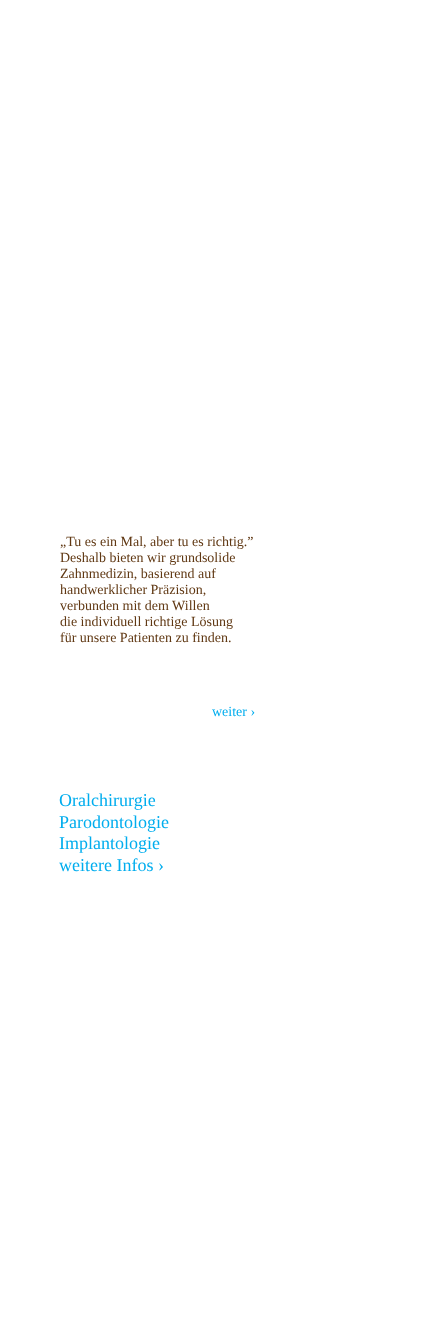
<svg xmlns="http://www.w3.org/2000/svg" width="424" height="1317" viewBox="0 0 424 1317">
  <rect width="100%" height="100%" fill="#ffffff"/>
  <text x="60" y="546" font-family="Liberation Serif" font-size="14" fill="#603813">„Tu es ein Mal, aber tu es richtig.”</text>
  <text x="60" y="562" font-family="Liberation Serif" font-size="14" fill="#603813">Deshalb bieten wir grundsolide</text>
  <text x="60" y="578" font-family="Liberation Serif" font-size="14" fill="#603813">Zahnmedizin, basierend auf</text>
  <text x="60" y="594" font-family="Liberation Serif" font-size="14" fill="#603813">handwerklicher Präzision,</text>
  <text x="60" y="610" font-family="Liberation Serif" font-size="14" fill="#603813">verbunden mit dem Willen</text>
  <text x="60" y="626" font-family="Liberation Serif" font-size="14" fill="#603813">die individuell richtige Lösung</text>
  <text x="60" y="642" font-family="Liberation Serif" font-size="14" fill="#603813">für unsere Patienten zu finden.</text>
  <text x="212" y="716" font-family="Liberation Serif" font-size="14" fill="#00adee">weiter ›</text>
  <text x="59" y="806" font-family="Liberation Serif" font-size="18" fill="#00adee">Oralchirurgie</text>
  <text x="59" y="828" font-family="Liberation Serif" font-size="18" fill="#00adee">Parodontologie</text>
  <text x="59" y="849" font-family="Liberation Serif" font-size="18" fill="#00adee">Implantologie</text>
  <text x="59" y="871" font-family="Liberation Serif" font-size="18" fill="#00adee">weitere Infos ›</text>
</svg>
